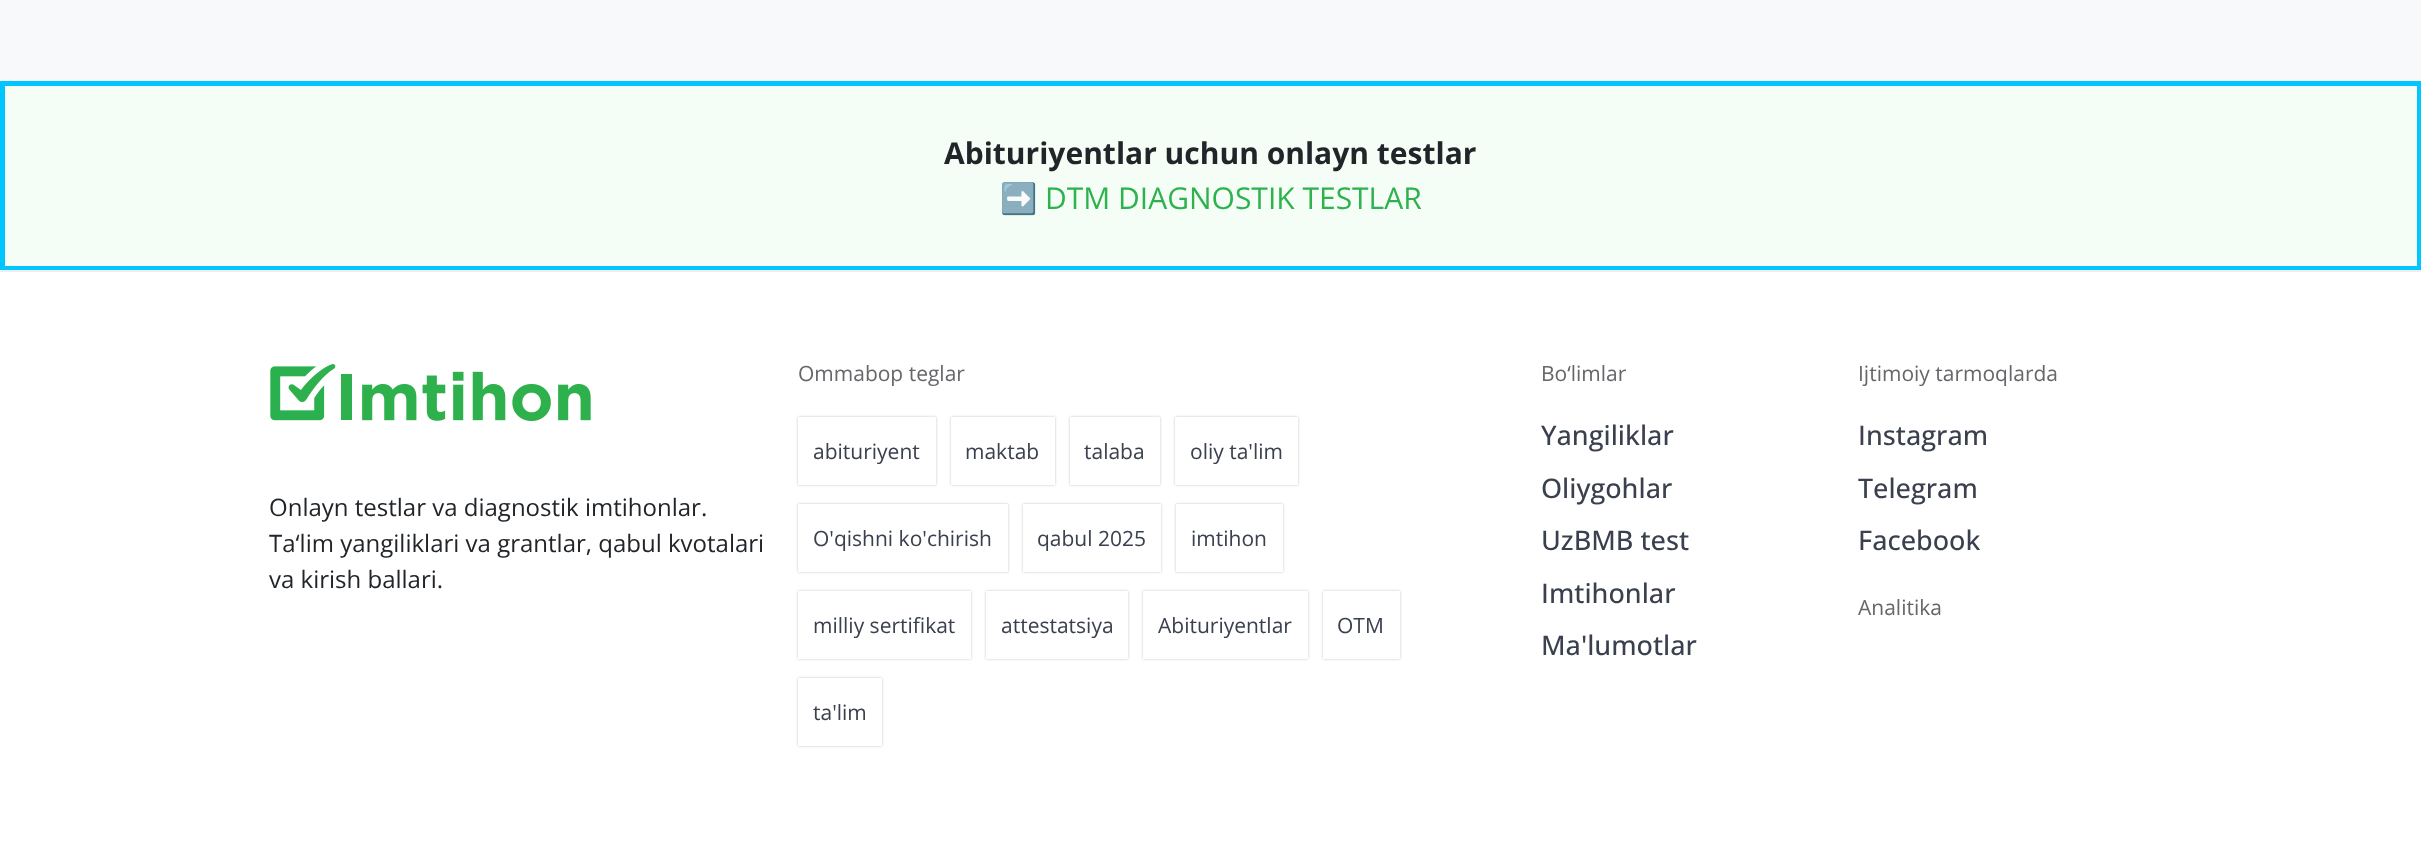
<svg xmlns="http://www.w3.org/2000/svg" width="2421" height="866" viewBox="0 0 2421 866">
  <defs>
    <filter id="blur1" x="-50%" y="-200%" width="200%" height="500%"><feGaussianBlur stdDeviation="1.5"/></filter>
    <filter id="blur2" x="-50%" y="-200%" width="200%" height="500%"><feGaussianBlur stdDeviation="1"/></filter>
  </defs>
  <rect width="100%" height="100%" fill="#ffffff"/>
  <rect x="0" y="0" width="2421" height="81" fill="#f8f9fb"/>
  <rect x="2.5" y="83.5" width="2416" height="184" fill="none" stroke="#00c5ff" stroke-width="5"/>
  <rect x="5" y="86" width="2412" height="180" fill="#f5fef6"/>
  <text x="944" y="164" font-family="Open Sans" font-size="30" font-weight="bold" fill="#212529">Abituriyentlar uchun onlayn testlar</text>
  <text x="1000" y="209" font-family="Noto Color Emoji" font-size="30" fill="#2eb24d">➡️</text>
  <text x="1045" y="209" font-family="Open Sans" font-size="30" fill="#2eb24d">DTM DIAGNOSTIK TESTLAR</text>
  <rect x="0" y="270" width="2421" height="2" fill="#edeff2"/>
  <image x="270" y="364" width="321" height="57" href="img1.png"/>
  <text x="269" y="516" font-family="Open Sans" font-size="24" fill="#212529">Onlayn testlar va diagnostik imtihonlar.</text>
  <text x="269" y="552" font-family="Open Sans" font-size="24" fill="#212529">Ta‘lim yangiliklari va grantlar, qabul kvotalari</text>
  <text x="269" y="588" font-family="Open Sans" font-size="24" fill="#212529">va kirish ballari.</text>
  <text x="798" y="381" font-family="Open Sans" font-size="21" fill="#66676a">Ommabop teglar</text>
  <rect x="798" y="417" width="138" height="68" fill="#303133" fill-opacity="0.13" filter="url(#blur1)"/>
  <rect x="798" y="417" width="138" height="68" fill="#303133" fill-opacity="0.1" filter="url(#blur2)"/>
  <rect x="798" y="417" width="138" height="68" fill="#ffffff"/>
  <text x="813" y="459" font-family="Open Sans" font-size="21" fill="#3a404e">abituriyent</text>
  <rect x="951" y="417" width="104" height="68" fill="#303133" fill-opacity="0.13" filter="url(#blur1)"/>
  <rect x="951" y="417" width="104" height="68" fill="#303133" fill-opacity="0.1" filter="url(#blur2)"/>
  <rect x="951" y="417" width="104" height="68" fill="#ffffff"/>
  <text x="965" y="459" font-family="Open Sans" font-size="21" fill="#3a404e">maktab</text>
  <rect x="1070" y="417" width="90" height="68" fill="#303133" fill-opacity="0.13" filter="url(#blur1)"/>
  <rect x="1070" y="417" width="90" height="68" fill="#303133" fill-opacity="0.1" filter="url(#blur2)"/>
  <rect x="1070" y="417" width="90" height="68" fill="#ffffff"/>
  <text x="1084" y="459" font-family="Open Sans" font-size="21" fill="#3a404e">talaba</text>
  <rect x="1175" y="417" width="123" height="68" fill="#303133" fill-opacity="0.13" filter="url(#blur1)"/>
  <rect x="1175" y="417" width="123" height="68" fill="#303133" fill-opacity="0.1" filter="url(#blur2)"/>
  <rect x="1175" y="417" width="123" height="68" fill="#ffffff"/>
  <text x="1190" y="459" font-family="Open Sans" font-size="21" fill="#3a404e">oliy ta'lim</text>
  <rect x="798" y="504" width="210" height="68" fill="#303133" fill-opacity="0.13" filter="url(#blur1)"/>
  <rect x="798" y="504" width="210" height="68" fill="#303133" fill-opacity="0.1" filter="url(#blur2)"/>
  <rect x="798" y="504" width="210" height="68" fill="#ffffff"/>
  <text x="813" y="546" font-family="Open Sans" font-size="21" fill="#3a404e">O'qishni ko'chirish</text>
  <rect x="1023" y="504" width="138" height="68" fill="#303133" fill-opacity="0.13" filter="url(#blur1)"/>
  <rect x="1023" y="504" width="138" height="68" fill="#303133" fill-opacity="0.1" filter="url(#blur2)"/>
  <rect x="1023" y="504" width="138" height="68" fill="#ffffff"/>
  <text x="1037" y="546" font-family="Open Sans" font-size="21" fill="#3a404e">qabul 2025</text>
  <rect x="1176" y="504" width="107" height="68" fill="#303133" fill-opacity="0.13" filter="url(#blur1)"/>
  <rect x="1176" y="504" width="107" height="68" fill="#303133" fill-opacity="0.1" filter="url(#blur2)"/>
  <rect x="1176" y="504" width="107" height="68" fill="#ffffff"/>
  <text x="1191" y="546" font-family="Open Sans" font-size="21" fill="#3a404e">imtihon</text>
  <rect x="798" y="591" width="173" height="68" fill="#303133" fill-opacity="0.13" filter="url(#blur1)"/>
  <rect x="798" y="591" width="173" height="68" fill="#303133" fill-opacity="0.1" filter="url(#blur2)"/>
  <rect x="798" y="591" width="173" height="68" fill="#ffffff"/>
  <text x="813" y="633" font-family="Open Sans" font-size="21" fill="#3a404e">milliy sertifikat</text>
  <rect x="986" y="591" width="142" height="68" fill="#303133" fill-opacity="0.13" filter="url(#blur1)"/>
  <rect x="986" y="591" width="142" height="68" fill="#303133" fill-opacity="0.1" filter="url(#blur2)"/>
  <rect x="986" y="591" width="142" height="68" fill="#ffffff"/>
  <text x="1001" y="633" font-family="Open Sans" font-size="21" fill="#3a404e">attestatsiya</text>
  <rect x="1143" y="591" width="165" height="68" fill="#303133" fill-opacity="0.13" filter="url(#blur1)"/>
  <rect x="1143" y="591" width="165" height="68" fill="#303133" fill-opacity="0.1" filter="url(#blur2)"/>
  <rect x="1143" y="591" width="165" height="68" fill="#ffffff"/>
  <text x="1158" y="633" font-family="Open Sans" font-size="21" fill="#3a404e">Abituriyentlar</text>
  <rect x="1323" y="591" width="77" height="68" fill="#303133" fill-opacity="0.13" filter="url(#blur1)"/>
  <rect x="1323" y="591" width="77" height="68" fill="#303133" fill-opacity="0.1" filter="url(#blur2)"/>
  <rect x="1323" y="591" width="77" height="68" fill="#ffffff"/>
  <text x="1337" y="633" font-family="Open Sans" font-size="21" fill="#3a404e">OTM</text>
  <rect x="798" y="678" width="84" height="68" fill="#303133" fill-opacity="0.13" filter="url(#blur1)"/>
  <rect x="798" y="678" width="84" height="68" fill="#303133" fill-opacity="0.1" filter="url(#blur2)"/>
  <rect x="798" y="678" width="84" height="68" fill="#ffffff"/>
  <text x="813" y="720" font-family="Open Sans" font-size="21" fill="#3a404e">ta'lim</text>
  <text x="1541" y="381" font-family="Open Sans" font-size="21" fill="#66676a">Bo‘limlar</text>
  <text x="1541" y="445" font-family="Open Sans" font-size="27" font-weight="500" fill="#3a404e">Yangiliklar</text>
  <text x="1541" y="498" font-family="Open Sans" font-size="27" font-weight="500" fill="#3a404e">Oliygohlar</text>
  <text x="1541" y="550" font-family="Open Sans" font-size="27" font-weight="500" fill="#3a404e">UzBMB test</text>
  <text x="1541" y="603" font-family="Open Sans" font-size="27" font-weight="500" fill="#3a404e">Imtihonlar</text>
  <text x="1541" y="655" font-family="Open Sans" font-size="27" font-weight="500" fill="#3a404e">Ma'lumotlar</text>
  <text x="1858" y="381" font-family="Open Sans" font-size="21" fill="#66676a">Ijtimoiy tarmoqlarda</text>
  <text x="1858" y="445" font-family="Open Sans" font-size="27" font-weight="500" fill="#3a404e">Instagram</text>
  <text x="1858" y="498" font-family="Open Sans" font-size="27" font-weight="500" fill="#3a404e">Telegram</text>
  <text x="1858" y="550" font-family="Open Sans" font-size="27" font-weight="500" fill="#3a404e">Facebook</text>
  <text x="1858" y="615" font-family="Open Sans" font-size="21" fill="#66676a">Analitika</text>
</svg>
